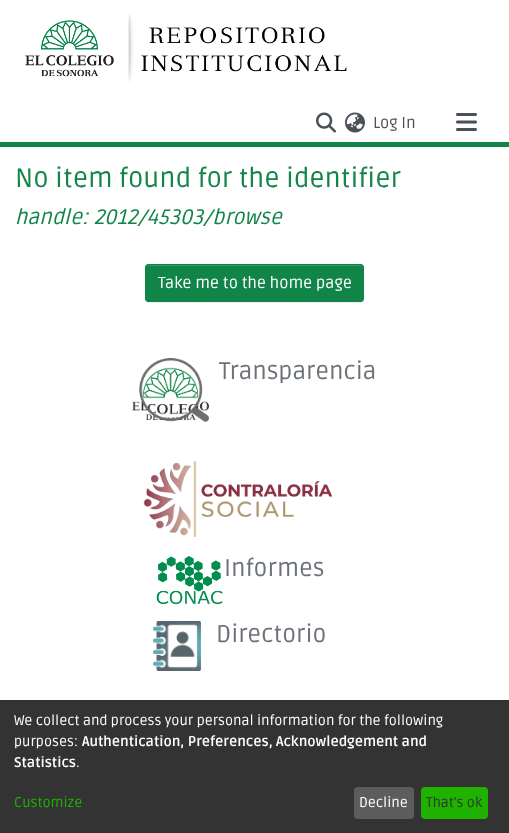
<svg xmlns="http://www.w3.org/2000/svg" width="509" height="833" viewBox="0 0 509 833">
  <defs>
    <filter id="blur1" x="-50%" y="-200%" width="200%" height="500%"><feGaussianBlur stdDeviation="0.5"/></filter>
  </defs>
  <rect width="100%" height="100%" fill="#ffffff"/>
  <rect x="0" y="142" width="509" height="5" fill="#118548"/>
  <image x="25" y="13" width="322" height="69" href="img1.png"/>
  <image x="316" y="112" width="20" height="21" href="img2.png"/>
  <image x="345" y="112" width="20" height="21" href="img3.png"/>
  <text x="373" y="128" font-family="Ruda" font-size="16" fill="#495057">Log In</text>
  <image x="456" y="113" width="21" height="18" href="img4.png"/>
  <text x="15" y="187" font-family="Ruda" font-size="26.75" fill="#118548">No item found for the identifier</text>
  <text x="15" y="224" font-family="Ruda" font-size="20.9" font-style="italic" fill="#118548">handle: 2012/45303/browse</text>
  <rect x="145" y="265" width="219" height="38" rx="4" fill="#000000" fill-opacity="0.07" filter="url(#blur1)"/>
  <rect x="145" y="264" width="219" height="38" rx="4" fill="#118548"/>
  <path d="M149 266H360C362 266 363 267 363 269V268C363 266 362 265 360 265H149C147 265 146 266 146 268V269C146 267 147 266 149 266Z" fill="#359763"/>
  <rect x="145.5" y="264.5" width="218" height="37" rx="3.5" fill="none" stroke="#118548"/>
  <text x="158" y="288" font-family="Ruda" font-size="16" fill="#ffffff">Take me to the home page</text>
  <image x="132" y="358" width="77" height="64" href="img5.png"/>
  <text x="219" y="379" font-family="Ruda" font-size="24" fill="#6d7278">Transparencia</text>
  <image x="143" y="461" width="190" height="76" href="img6.png"/>
  <image x="156" y="556" width="67" height="49" href="img7.png"/>
  <text x="224" y="576" font-family="Ruda" font-size="24" fill="#6d7278">Informes</text>
  <image x="153" y="621" width="48" height="50" href="img8.png"/>
  <text x="216" y="642" font-family="Ruda" font-size="24" fill="#6d7278">Directorio</text>
  <rect x="0" y="700" width="509" height="133" fill="#333333"/>
  <text x="14" y="725" font-family="Ruda" font-size="14" fill="#ffffff">We collect and process your personal information for the following</text>
  <text x="14" y="746" font-family="Ruda" font-size="14" fill="#ffffff">purposes:</text>
  <text x="82" y="746" font-family="Ruda" font-size="14" font-weight="bold" fill="#ffffff">Authentication, Preferences, Acknowledgement and</text>
  <text x="14" y="767" font-family="Ruda" font-size="14" font-weight="bold" fill="#ffffff">Statistics</text>
  <text x="76" y="767" font-family="Ruda" font-size="14" fill="#ffffff">.</text>
  <text x="14" y="807" font-family="Ruda" font-size="14" fill="#1fb300">Customize</text>
  <rect x="354" y="787" width="60" height="32" rx="4" fill="#5c5c5c"/>
  <text x="359" y="807" font-family="Ruda" font-size="14" fill="#ffffff">Decline</text>
  <rect x="421" y="787" width="67" height="32" rx="4" fill="#1fb300"/>
  <text x="426" y="807" font-family="Ruda" font-size="14" fill="#333333">That's ok</text>
</svg>
